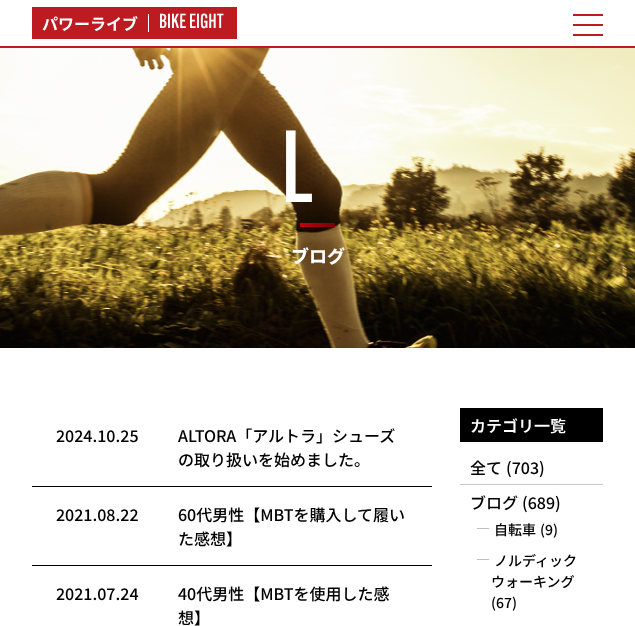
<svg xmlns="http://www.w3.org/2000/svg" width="635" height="626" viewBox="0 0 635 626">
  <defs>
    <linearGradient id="g1" gradientUnits="userSpaceOnUse" x1="300" y1="225" x2="335" y2="225"><stop offset="0" stop-color="#c7000b"/><stop offset="1" stop-color="#760003"/></linearGradient>
  </defs>
  <rect width="100%" height="100%" fill="#ffffff"/>
  <rect x="0" y="46" width="635" height="2" fill="#bb1b21"/>
  <rect x="32" y="7" width="205" height="32" fill="#bb1b21"/>
  <text x="42" y="30" font-family="Noto Sans JP" font-size="16" font-weight="bold" fill="#ffffff">パワーライブ</text>
  <rect x="148" y="14" width="1" height="18" fill="#ffffff"/>
  <text x="159" y="28" font-family="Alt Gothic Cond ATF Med" font-size="20" font-weight="500" fill="#ffffff">BIKE EIGHT</text>
  <rect x="573" y="14" width="30" height="2" fill="#bb1b21"/>
  <rect x="573" y="24" width="30" height="2" fill="#bb1b21"/>
  <rect x="573" y="34" width="30" height="2" fill="#bb1b21"/>
  <image x="0" y="48" width="635" height="300" href="img1.png"/>
  <text x="281" y="202" font-family="Alt Gothic Cond ATF Med" font-size="100" font-weight="500" letter-spacing="-1" fill="#ffffff">L</text>
  <rect x="300" y="223" width="35" height="4" fill="url(#g1)"/>
  <text x="291" y="263" font-family="Noto Sans JP" font-size="18" font-weight="800" fill="#ffffff">ブログ</text>
  <rect x="32" y="486" width="400" height="1" fill="#000000"/>
  <text x="56" y="442" font-family="Noto Sans JP" font-size="16" font-weight="500" fill="#000000">2024.10.25</text>
  <text x="178" y="442" font-family="Noto Sans JP" font-size="16" font-weight="500" fill="#000000">ALTORA「アルトラ」シューズ</text>
  <text x="178" y="466" font-family="Noto Sans JP" font-size="16" font-weight="500" fill="#000000">の取り扱いを始めました。</text>
  <rect x="32" y="565" width="400" height="1" fill="#000000"/>
  <text x="56" y="521" font-family="Noto Sans JP" font-size="16" font-weight="500" fill="#000000">2021.08.22</text>
  <text x="178" y="521" font-family="Noto Sans JP" font-size="16" font-weight="500" fill="#000000">60代男性【MBTを購入して履い</text>
  <text x="178" y="545" font-family="Noto Sans JP" font-size="16" font-weight="500" fill="#000000">た感想】</text>
  <text x="56" y="600" font-family="Noto Sans JP" font-size="16" font-weight="500" fill="#000000">2021.07.24</text>
  <text x="178" y="600" font-family="Noto Sans JP" font-size="16" font-weight="500" fill="#000000">40代男性【MBTを使用した感</text>
  <text x="178" y="624" font-family="Noto Sans JP" font-size="16" font-weight="500" fill="#000000">想】</text>
  <rect x="460" y="408" width="143" height="34" fill="#000000"/>
  <text x="470" y="432" font-family="Noto Sans JP" font-size="16" font-weight="600" fill="#ffffff">カテゴリ一覧</text>
  <rect x="460" y="484" width="143" height="1" fill="#c6c6c6"/>
  <text x="470" y="474" font-family="Noto Sans JP" font-size="16" font-weight="500" fill="#000000">全て</text>
  <text x="506" y="474" font-family="Noto Sans JP" font-size="16" font-weight="500" fill="#000000">(703)</text>
  <text x="470" y="509" font-family="Noto Sans JP" font-size="16" font-weight="500" fill="#000000">ブログ</text>
  <text x="522" y="509" font-family="Noto Sans JP" font-size="16" font-weight="500" fill="#000000">(689)</text>
  <text x="477" y="533" font-family="Noto Sans JP" font-size="12" font-weight="500" fill="#808080">─</text>
  <text x="494" y="535" font-family="Noto Sans JP" font-size="14" font-weight="500" fill="#000000">自転車</text>
  <text x="540" y="535" font-family="Noto Sans JP" font-size="14" font-weight="500" fill="#000000">(9)</text>
  <text x="477" y="564" font-family="Noto Sans JP" font-size="12" font-weight="500" fill="#808080">─</text>
  <text x="494" y="566" font-family="Noto Sans JP" font-size="14" font-weight="500" fill="#000000">ノルディック</text>
  <text x="491" y="587" font-family="Noto Sans JP" font-size="14" font-weight="500" fill="#000000">ウォーキング</text>
  <text x="491" y="608" font-family="Noto Sans JP" font-size="14" font-weight="500" fill="#000000">(67)</text>
</svg>
